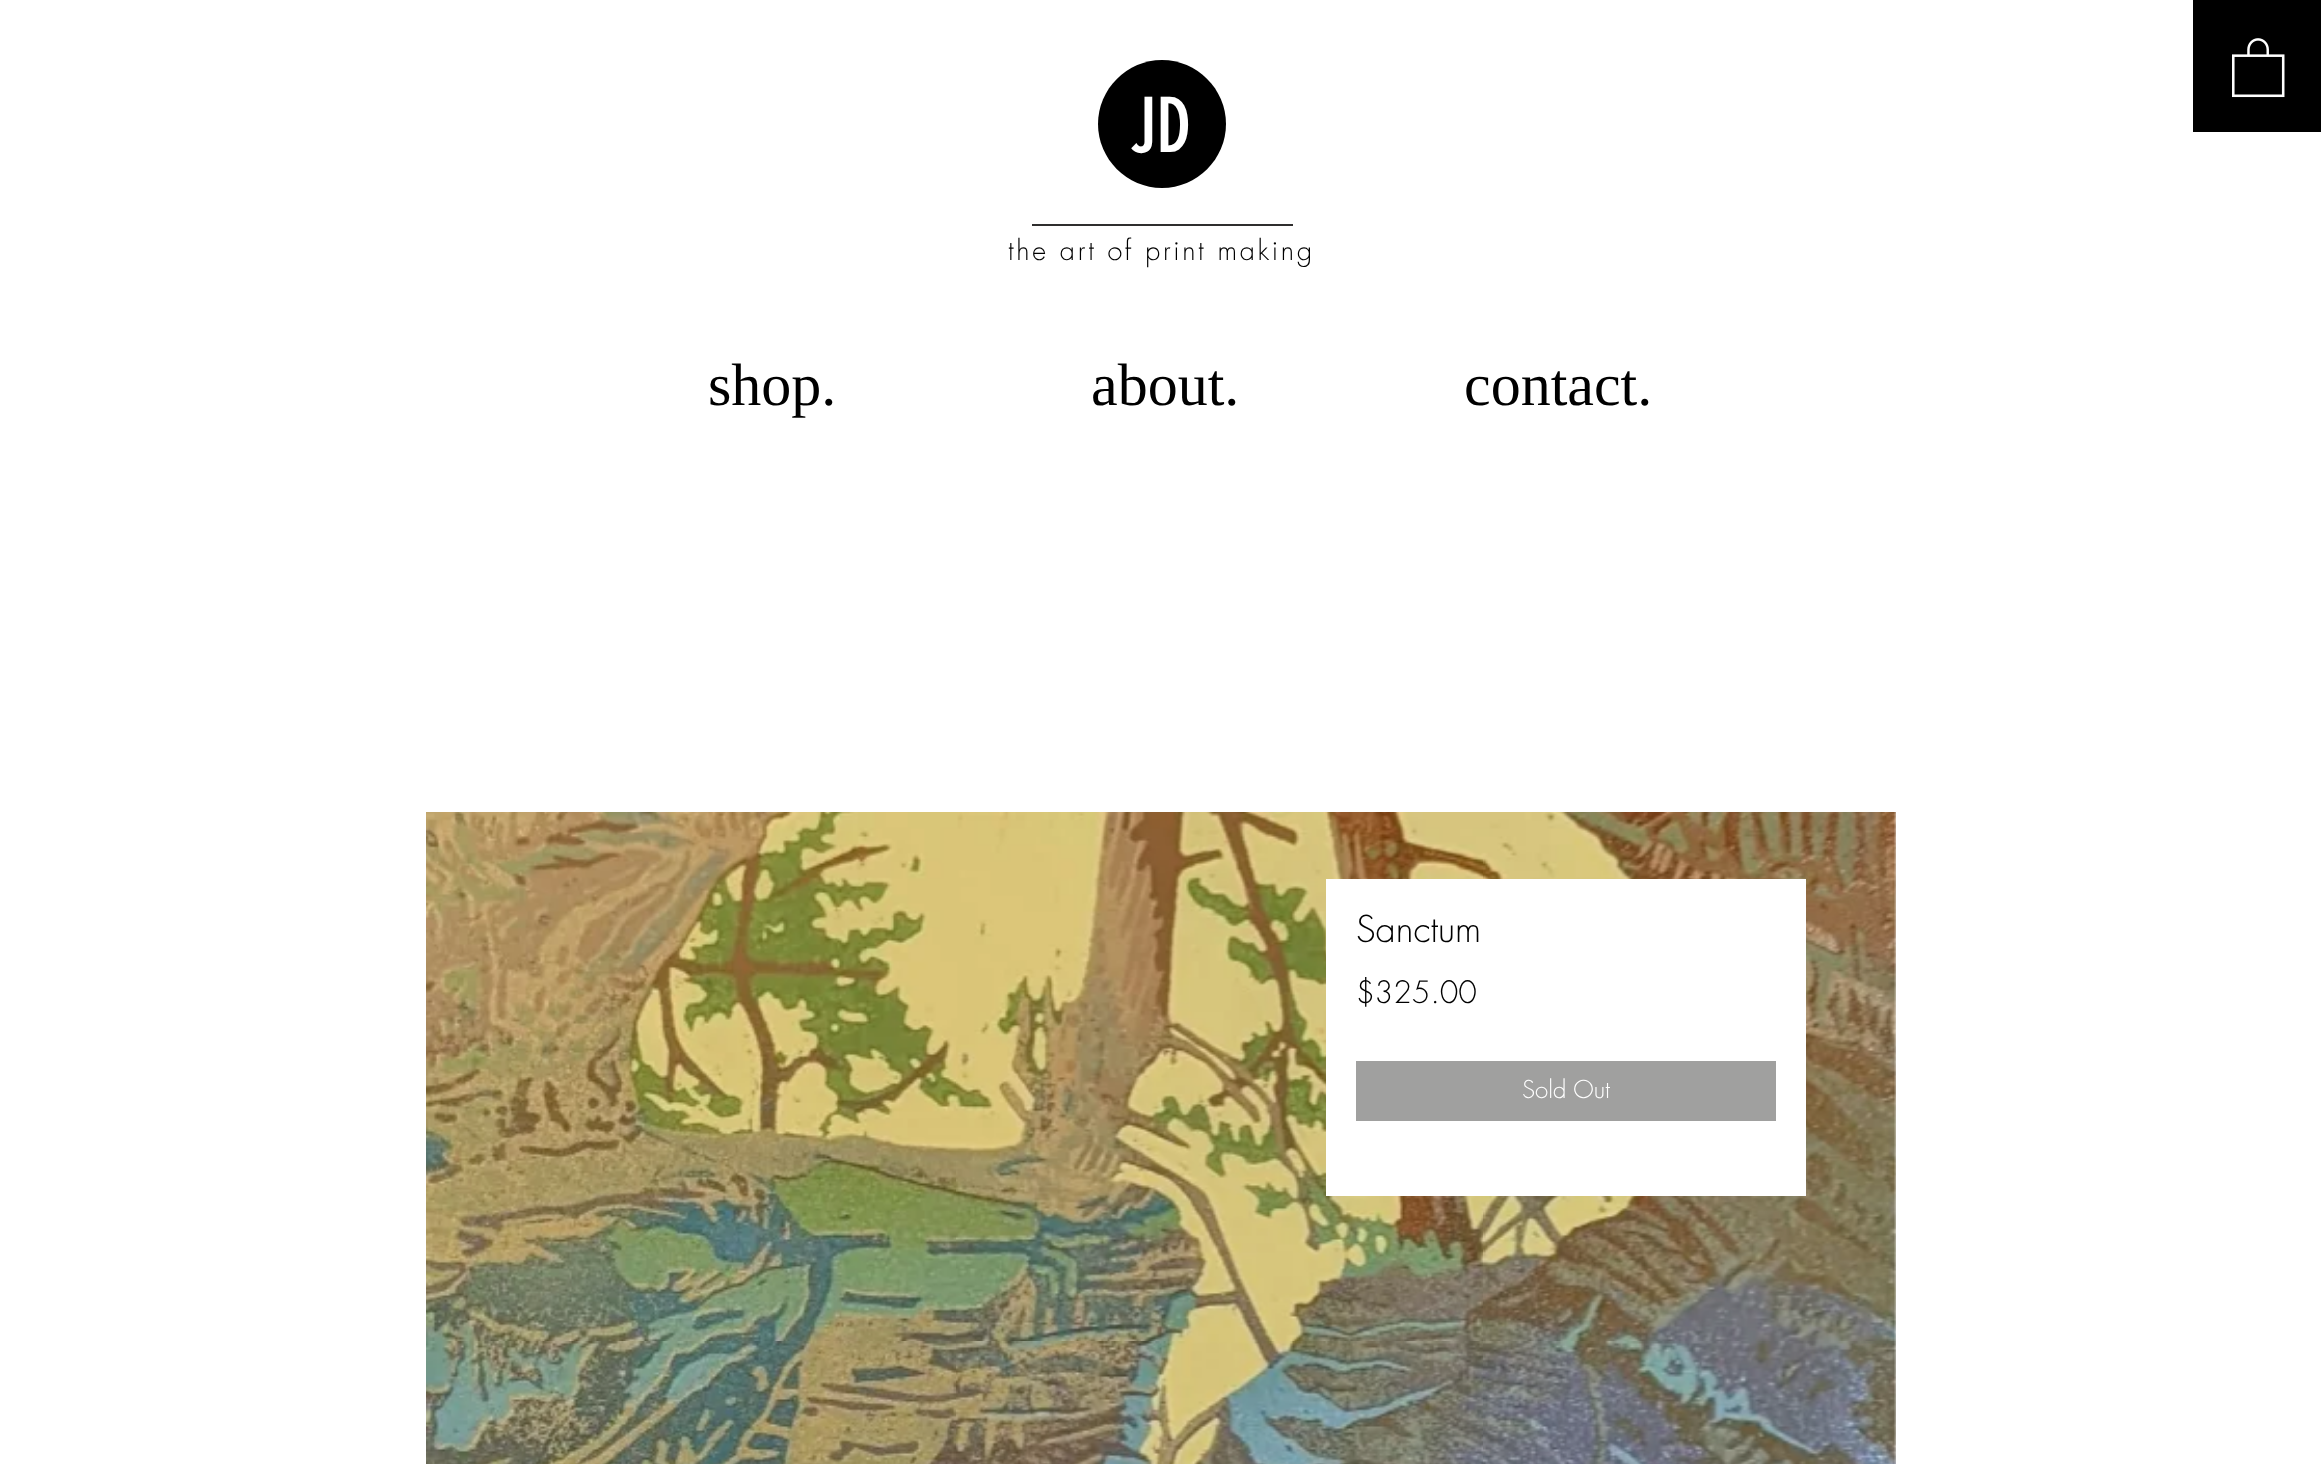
<svg xmlns="http://www.w3.org/2000/svg" width="2321" height="1464" viewBox="0 0 2321 1464">
  <rect width="100%" height="100%" fill="#ffffff"/>
  <rect x="2193" y="0" width="128" height="132" fill="#000000"/>
  <image x="2232" y="38" width="53" height="60" href="img1.png"/>
  <path d="M1226 124C1226 159 1197 188 1162 188C1127 188 1098 159 1098 124C1098 89 1127 60 1162 60C1197 60 1226 89 1226 124Z" fill="#000000"/>
  <text x="1130" y="152" font-family="'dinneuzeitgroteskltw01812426'" font-size="75" fill="#ffffff">JD</text>
  <rect x="1032" y="224" width="261" height="2" fill="#2f2e2e"/>
  <text x="1008" y="260" font-family="futura" font-size="27" font-weight="300" letter-spacing="2.7" fill="#000000">the art of print making</text>
  <text x="708" y="405" font-family="Liberation Serif" font-size="60" fill="#000000">shop.</text>
  <text x="1091" y="405" font-family="Liberation Serif" font-size="60" fill="#000000">about.</text>
  <text x="1464" y="405" font-family="Liberation Serif" font-size="60" fill="#000000">contact.</text>
  <image x="426" y="812" width="1470" height="652" href="img2.png"/>
  <rect x="1326" y="879" width="480" height="317" fill="#ffffff"/>
  <text x="1356" y="942" font-family="futura" font-size="36" font-weight="300" fill="#000000">Sanctum</text>
  <text x="1356" y="1003" font-family="futura" font-size="30" font-weight="300" fill="#000000">$325.00</text>
  <rect x="1356" y="1061" width="420" height="60" fill="#a0a09f"/>
  <text x="1522" y="1098" font-family="futura" font-size="24" font-weight="300" fill="#ffffff">Sold Out</text>
</svg>
